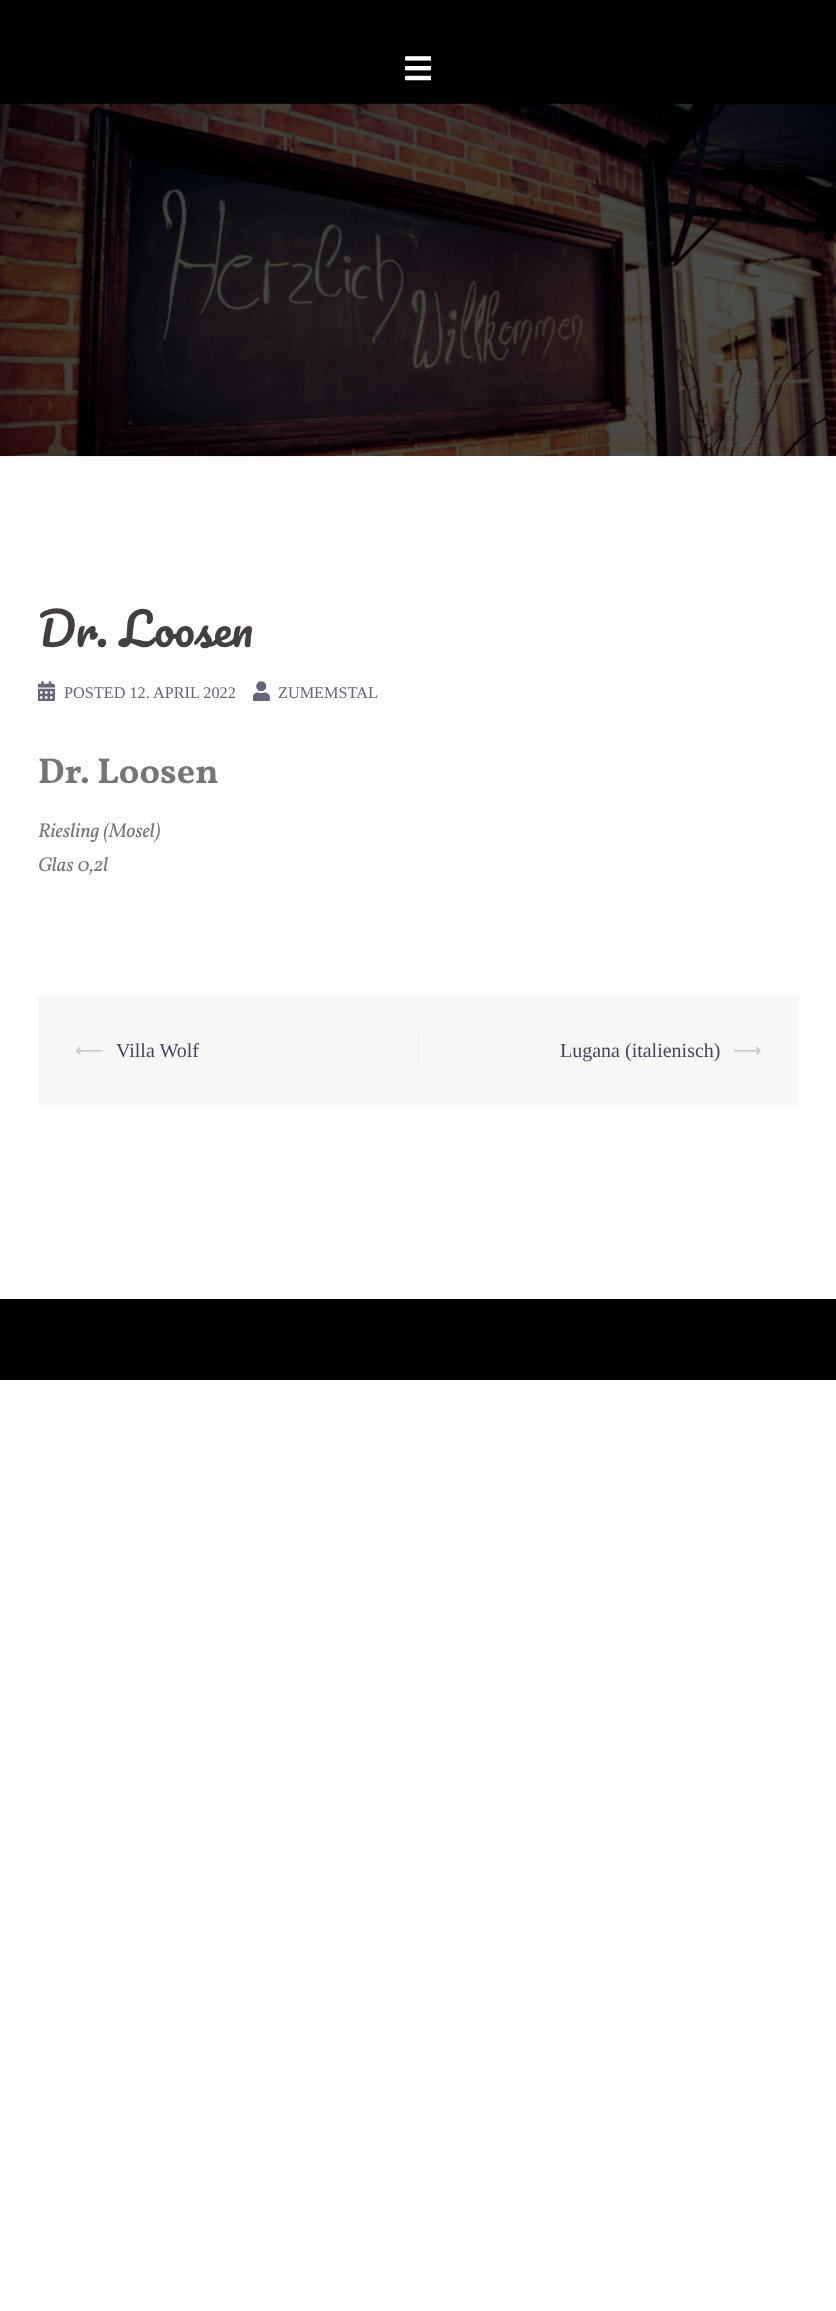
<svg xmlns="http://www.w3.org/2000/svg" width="836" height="2311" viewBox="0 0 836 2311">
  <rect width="100%" height="100%" fill="#ffffff"/>
  <rect x="0" y="0" width="836" height="104" fill="#000000"/>
  <image x="405" y="56" width="26" height="25" href="img1.png"/>
  <image x="0" y="103" width="836" height="354" href="img2.png"/>
  <text x="38" y="647" font-family="Pacifico" font-size="45" fill="#443f3f">Dr. Loosen</text>
  <image x="38" y="681" width="17" height="20" href="img3.png"/>
  <text x="64" y="698" font-family="Liberation Serif" font-size="16.25" fill="#68647a">POSTED 12. APRIL 2022</text>
  <image x="253" y="681" width="17" height="20" href="img4.png"/>
  <text x="278" y="698" font-family="Liberation Serif" font-size="16.25" fill="#68647a">ZUMEMSTAL</text>
  <text x="38" y="783" font-family="Vollkorn" font-size="36" font-weight="bold" fill="#767676">Dr. Loosen</text>
  <text x="38" y="837" font-family="Vollkorn" font-size="20" font-style="italic" fill="#767676">Riesling (Mosel)</text>
  <text x="38" y="871" font-family="Vollkorn" font-size="20" font-style="italic" fill="#767676">Glas 0,2l</text>
  <rect x="38" y="996" width="761" height="109" fill="#f7f7f7"/>
  <rect x="418" y="1034" width="1" height="34" fill="#ebebeb"/>
  <text x="75" y="1057" font-family="DejaVu Sans" font-size="20" fill="#c7c7c7">⟵</text>
  <text x="116" y="1057" font-family="Liberation Serif" font-size="20" fill="#47425d">Villa Wolf</text>
  <text x="560" y="1057" font-family="Liberation Serif" font-size="20" fill="#47425d">Lugana (italienisch)</text>
  <text x="733" y="1057" font-family="DejaVu Sans" font-size="20" fill="#c7c7c7">⟶</text>
  <rect x="0" y="1299" width="836" height="81" fill="#000000"/>
</svg>
